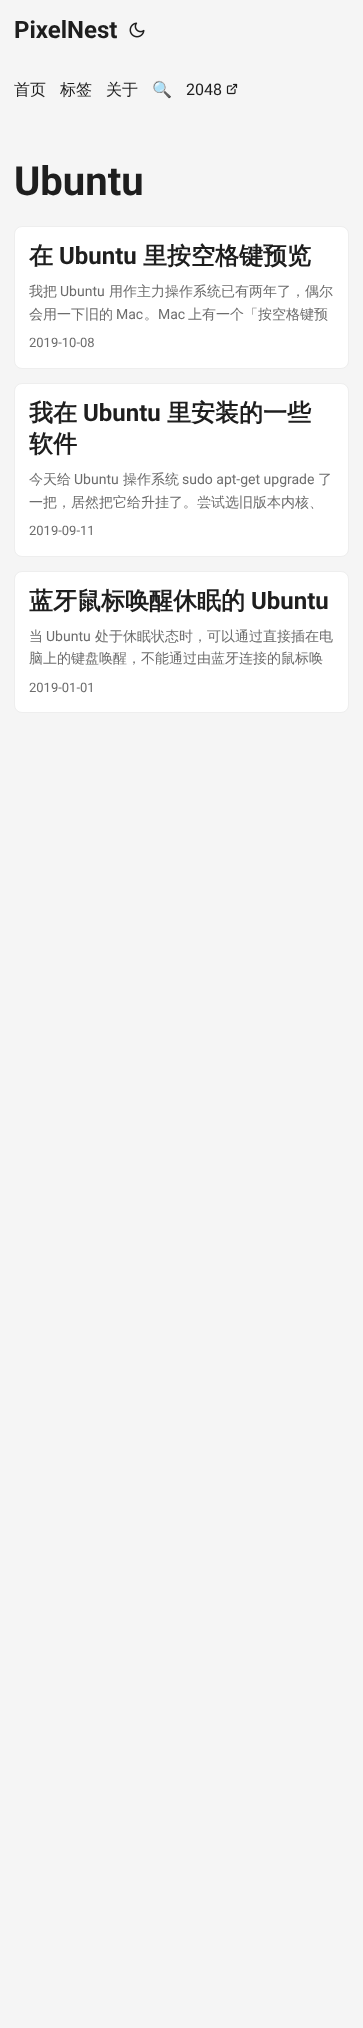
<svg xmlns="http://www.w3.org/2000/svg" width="363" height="2028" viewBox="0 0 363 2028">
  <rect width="100%" height="100%" fill="#f5f5f5"/>
  <text x="14" y="38" font-family="Roboto" font-size="24" font-weight="bold" fill="#1e1e1e">PixelNest</text>
  <image x="129" y="22" width="16" height="16" href="img1.png"/>
  <text x="14" y="95" font-family="WenQuanYi Zen Hei" font-size="16" font-weight="500" fill="#1e1e1e">首页</text>
  <text x="60" y="95" font-family="WenQuanYi Zen Hei" font-size="16" font-weight="500" fill="#1e1e1e">标签</text>
  <text x="106" y="95" font-family="WenQuanYi Zen Hei" font-size="16" font-weight="500" fill="#1e1e1e">关于</text>
  <text x="152" y="95" font-family="Noto Color Emoji" font-size="16" fill="#1e1e1e">🔍</text>
  <text x="186" y="95" font-family="Roboto" font-size="16" fill="#1e1e1e">2048</text>
  <image x="226" y="83" width="12" height="12" href="img2.png"/>
  <text x="14" y="195" font-family="Roboto" font-size="40" font-weight="bold" fill="#1e1e1e">Ubuntu</text>
  <rect x="14.5" y="226.5" width="334" height="142" rx="7.5" fill="#ffffff" stroke="#eeeeee"/>
  <text x="29" y="264" font-family="WenQuanYi Zen Hei" font-size="24" font-weight="bold" fill="#1e1e1e">在</text>
  <text x="59" y="264" font-family="Roboto" font-size="24" font-weight="bold" fill="#1e1e1e">Ubuntu</text>
  <text x="143" y="264" font-family="WenQuanYi Zen Hei" font-size="24" font-weight="bold" fill="#1e1e1e">里按空格键预览</text>
  <text x="29" y="296" font-family="WenQuanYi Zen Hei" font-size="14" font-weight="500" fill="#6c6c6c">我把</text>
  <text x="60" y="296" font-family="Roboto" font-size="14" fill="#6c6c6c">Ubuntu</text>
  <text x="109" y="296" font-family="WenQuanYi Zen Hei" font-size="14" font-weight="500" fill="#6c6c6c">用作主力操作系统已有两年了，偶尔</text>
  <text x="29" y="319" font-family="WenQuanYi Zen Hei" font-size="14" font-weight="500" fill="#6c6c6c">会用一下旧的</text>
  <text x="116" y="319" font-family="Roboto" font-size="14" fill="#6c6c6c">Mac</text>
  <text x="144" y="319" font-family="WenQuanYi Zen Hei" font-size="14" font-weight="500" fill="#6c6c6c">。</text>
  <text x="158" y="319" font-family="Roboto" font-size="14" fill="#6c6c6c">Mac</text>
  <text x="188" y="319" font-family="WenQuanYi Zen Hei" font-size="14" font-weight="500" fill="#6c6c6c">上有一个「按空格键预</text>
  <text x="29" y="347" font-family="Roboto" font-size="13" fill="#6c6c6c">2019-10-08</text>
  <rect x="14.5" y="383.5" width="334" height="173" rx="7.5" fill="#ffffff" stroke="#eeeeee"/>
  <text x="29" y="421" font-family="WenQuanYi Zen Hei" font-size="24" font-weight="bold" fill="#1e1e1e">我在</text>
  <text x="83" y="421" font-family="Roboto" font-size="24" font-weight="bold" fill="#1e1e1e">Ubuntu</text>
  <text x="167" y="421" font-family="WenQuanYi Zen Hei" font-size="24" font-weight="bold" fill="#1e1e1e">里安装的一些</text>
  <text x="29" y="452" font-family="WenQuanYi Zen Hei" font-size="24" font-weight="bold" fill="#1e1e1e">软件</text>
  <text x="29" y="484" font-family="WenQuanYi Zen Hei" font-size="14" font-weight="500" fill="#6c6c6c">今天给</text>
  <text x="74" y="484" font-family="Roboto" font-size="14" fill="#6c6c6c">Ubuntu</text>
  <text x="123" y="484" font-family="WenQuanYi Zen Hei" font-size="14" font-weight="500" fill="#6c6c6c">操作系统</text>
  <text x="182" y="484" font-family="Roboto" font-size="14" fill="#6c6c6c">sudo apt-get upgrade</text>
  <text x="318" y="484" font-family="WenQuanYi Zen Hei" font-size="14" font-weight="500" fill="#6c6c6c">了</text>
  <text x="29" y="507" font-family="WenQuanYi Zen Hei" font-size="14" font-weight="500" fill="#6c6c6c">一把，居然把它给升挂了。尝试选旧版本内核、</text>
  <text x="29" y="535" font-family="Roboto" font-size="13" fill="#6c6c6c">2019-09-11</text>
  <rect x="14.5" y="571.5" width="334" height="141" rx="7.5" fill="#ffffff" stroke="#eeeeee"/>
  <text x="29" y="609" font-family="WenQuanYi Zen Hei" font-size="24" font-weight="bold" fill="#1e1e1e">蓝牙鼠标唤醒休眠的</text>
  <text x="251" y="609" font-family="Roboto" font-size="24" font-weight="bold" fill="#1e1e1e">Ubuntu</text>
  <text x="29" y="641" font-family="WenQuanYi Zen Hei" font-size="14" font-weight="500" fill="#6c6c6c">当</text>
  <text x="46" y="641" font-family="Roboto" font-size="14" fill="#6c6c6c">Ubuntu</text>
  <text x="95" y="641" font-family="WenQuanYi Zen Hei" font-size="14" font-weight="500" fill="#6c6c6c">处于休眠状态时，可以通过直接插在电</text>
  <text x="29" y="663" font-family="WenQuanYi Zen Hei" font-size="14" font-weight="500" fill="#6c6c6c">脑上的键盘唤醒，不能通过由蓝牙连接的鼠标唤</text>
  <text x="29" y="692" font-family="Roboto" font-size="13" fill="#6c6c6c">2019-01-01</text>
</svg>
